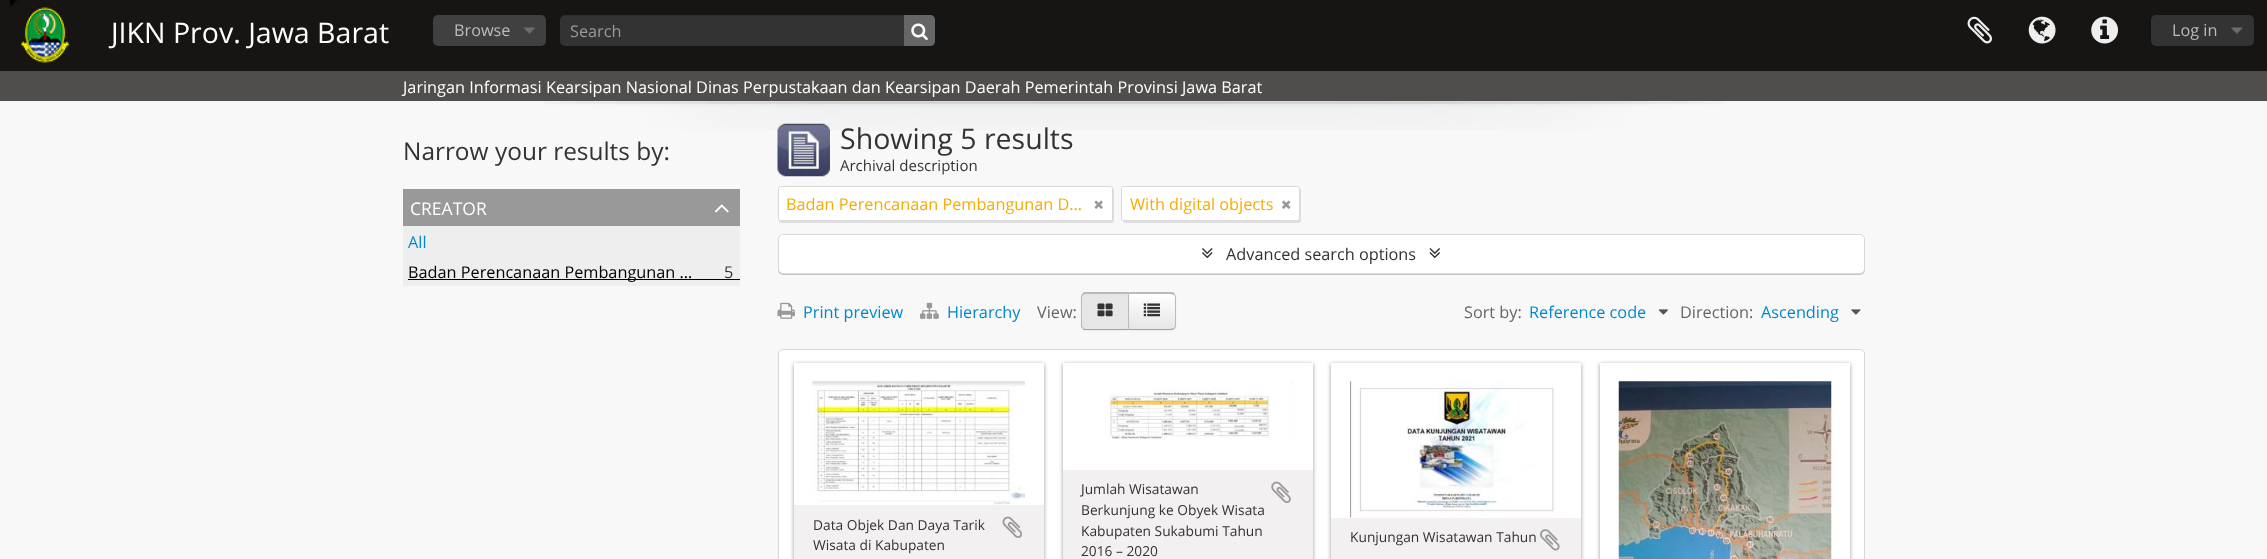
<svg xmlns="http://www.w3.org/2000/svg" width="2267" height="559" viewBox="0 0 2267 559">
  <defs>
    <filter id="blur1" x="-50%" y="-200%" width="200%" height="500%"><feGaussianBlur stdDeviation="0.5"/></filter>
    <filter id="blur2" x="-50%" y="-200%" width="200%" height="500%"><feGaussianBlur stdDeviation="1"/></filter>
    <clipPath id="clip1"><path d="M1128 293H1171C1174 293 1176 295 1176 298V325C1176 328 1174 330 1171 330H1128Z"/></clipPath>
    <linearGradient id="g1" gradientUnits="userSpaceOnUse" x1="1152" y1="294" x2="1152" y2="329"><stop offset="0" stop-color="#ffffff"/><stop offset="1" stop-color="#e6e6e6"/></linearGradient>
    <filter id="blur3" x="-50%" y="-200%" width="200%" height="500%"><feGaussianBlur stdDeviation="2"/></filter>
    <clipPath id="clip2"><path d="M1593 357H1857V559H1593ZM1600 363H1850V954H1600Z" clip-rule="evenodd"/></clipPath>
  </defs>
  <rect width="100%" height="100%" fill="#f8f8f8"/>
  <rect x="0" y="0" width="2267" height="71" fill="#161514"/>
  <image x="10" y="0" width="59" height="63" href="img1.png"/>
  <text x="111" y="43" font-family="Open Sans" font-size="28.5" fill="#ffffff">JIKN Prov. Jawa Barat</text>
  <rect x="433" y="15" width="113" height="31" rx="5" fill="#404040"/>
  <image x="523" y="27" width="13" height="7" href="img2.png"/>
  <text x="454" y="36" font-family="Open Sans" font-size="16.25" fill="#bbbbbb">Browse</text>
  <rect x="560" y="15" width="375" height="31" rx="5" fill="#333333"/>
  <path d="M565 16H930C933 16 935 18 935 21V20C935 17 933 15 930 15H565C562 15 560 17 560 20V21C560 18 562 16 565 16Z" fill="#000000" fill-opacity="0.07"/>
  <text x="570" y="37" font-family="Open Sans" font-size="16.25" fill="#999999">Search</text>
  <path d="M904 15H930C933 15 935 17 935 20V41C935 44 933 46 930 46H904Z" fill="#666666"/>
  <image x="911" y="23" width="17" height="17" href="img3.png"/>
  <image x="1967" y="16" width="25" height="28" href="img4.png"/>
  <image x="2028" y="16" width="28" height="28" href="img5.png"/>
  <image x="2091" y="16" width="27" height="28" href="img6.png"/>
  <rect x="2151" y="15" width="103" height="31" rx="5" fill="#333333"/>
  <image x="2231" y="27" width="12" height="7" href="img7.png"/>
  <text x="2172" y="36" font-family="Open Sans" font-size="16.25" fill="#bbbbbb">Log in</text>
  <rect x="0" y="71" width="2267" height="30" fill="#4f4e4d"/>
  <text x="403" y="93" font-family="Open Sans" font-size="16.25" fill="#ffffff">Jaringan Informasi Kearsipan Nasional Dinas Perpustakaan dan Kearsipan Daerah Pemerintah Provinsi Jawa Barat</text>
  <image x="543" y="101" width="1182" height="30" href="img8.png"/>
  <text x="403" y="160" font-family="Open Sans" font-size="24.4" fill="#333333">Narrow your results by:</text>
  <rect x="403" y="189" width="337" height="37" fill="#999999"/>
  <text x="410" y="215" font-family="Open Sans" font-size="17.5" fill="#ffffff">CREATOR</text>
  <image x="714" y="204" width="15" height="9" href="img9.png"/>
  <rect x="403" y="226" width="337" height="60" fill="#eeeeee"/>
  <text x="408" y="248" font-family="Open Sans" font-size="16.25" fill="#0088cc">All</text>
  <rect x="408" y="279" width="332" height="1" fill="#000000"/>
  <text x="408" y="278" font-family="Open Sans" font-size="16.25" fill="#000000">Badan Perencanaan Pembangunan …</text>
  <text x="724" y="278" font-family="Open Sans" font-size="16.25" fill="#333333">5</text>
  <image x="777" y="123" width="53" height="54" href="img10.png"/>
  <text x="840" y="149" font-family="Open Sans" font-size="28.5" fill="#333333">Showing 5 results</text>
  <text x="840" y="171" font-family="Open Sans" font-size="15" fill="#333333">Archival description</text>
  <rect x="779" y="188" width="335" height="35" rx="2.5" fill="#000000" fill-opacity="0.1" filter="url(#blur1)"/>
  <rect x="778.5" y="186.5" width="334" height="34" rx="2" fill="#ffffff" stroke="#d9d9d9"/>
  <text x="786" y="210" font-family="Open Sans" font-size="16.25" fill="#f6ac00">Badan Perencanaan Pembangunan D…</text>
  <image x="1094" y="200" width="9" height="9" href="img11.png"/>
  <rect x="1123" y="188" width="178" height="35" rx="2.5" fill="#000000" fill-opacity="0.1" filter="url(#blur1)"/>
  <rect x="1121.5" y="186.5" width="178" height="34" rx="2" fill="#ffffff" stroke="#d9d9d9"/>
  <text x="1130" y="210" font-family="Open Sans" font-size="16.25" fill="#f6ac00">With digital objects</text>
  <image x="1282" y="200" width="9" height="9" href="img12.png"/>
  <rect x="778" y="235" width="1087" height="40" rx="5" fill="#000000" fill-opacity="0.2" filter="url(#blur1)"/>
  <rect x="778.5" y="234.5" width="1086" height="39" rx="4.5" fill="#ffffff" stroke="#d9d9d9"/>
  <image x="1202" y="248" width="11" height="11" href="img13.png"/>
  <text x="1226" y="260" font-family="Open Sans" font-size="16.25" fill="#333333">Advanced search options</text>
  <image x="1429" y="248" width="11" height="11" href="img14.png"/>
  <image x="777" y="302" width="18" height="17" href="img15.png"/>
  <text x="803" y="318" font-family="Open Sans" font-size="16.25" fill="#0088cc">Print preview</text>
  <image x="920" y="302" width="19" height="17" href="img16.png"/>
  <text x="947" y="318" font-family="Open Sans" font-size="16.25" fill="#0088cc">Hierarchy</text>
  <text x="1037" y="318" font-family="Open Sans" font-size="16.25" fill="#666666">View:</text>
  <rect x="1128" y="294" width="48" height="37" rx="5" fill="#000000" fill-opacity="0.05" filter="url(#blur2)"/>
  <g clip-path="url(#clip1)">
    <rect x="1129" y="294" width="47" height="35" fill="url(#g1)"/>
  </g>
  <path d="M1129 294L1128 292H1173L1175 294L1174 295L1171 294Z" fill="#bbbbbb"/>
  <path d="M1174.5 294C1175.5 295 1176 296.5 1176 298V325C1176 326.5 1175.5 327.5 1174.5 328.5L1174 327.5C1174.5 327 1175 326 1175 325V298C1175 296.5 1174.5 295.5 1174 295Z" fill="#bbbbbb"/>
  <path d="M1128 330H1171C1173 330 1174 329 1175 328H1174C1173 328 1172 329 1171 329H1129V328Z" fill="#a2a2a2"/>
  <rect x="1081" y="294" width="48" height="37" rx="5" fill="#000000" fill-opacity="0.05" filter="url(#blur2)"/>
  <path d="M1086 293H1129V330H1086C1083 330 1081 328 1081 325V298C1081 295 1083 293 1086 293Z" fill="#e6e6e6"/>
  <path d="M1086 294L1083 295L1082 294L1084 292H1129L1127 294Z" fill="#bbbbbb"/>
  <path d="M1129 292.5L1127 294H1128V329L1129 330Z" fill="#bbbbbb"/>
  <path d="M1129 330L1128 329H1086C1085 329 1084 329 1083 328V329C1083 330 1085 330 1086 330Z" fill="#a2a2a2"/>
  <path d="M1081 296L1082.5 293.5L1083.5 294.5C1082.5 295.5 1082 296.5 1082 298V325C1082 326 1082.5 327 1083.5 328L1082.5 328.5L1081 326.5Z" fill="#bbbbbb"/>
  <image x="1097" y="303" width="16" height="14" href="img17.png"/>
  <image x="1143" y="303" width="17" height="14" href="img18.png"/>
  <text x="1464" y="318" font-family="Open Sans" font-size="16.25" fill="#666666">Sort by:</text>
  <text x="1529" y="318" font-family="Open Sans" font-size="16.25" fill="#0088cc">Reference code</text>
  <image x="1658" y="309" width="10" height="6" href="img19.png"/>
  <text x="1680" y="318" font-family="Open Sans" font-size="16.25" fill="#666666">Direction:</text>
  <text x="1761" y="318" font-family="Open Sans" font-size="16.25" fill="#0088cc">Ascending</text>
  <image x="1851" y="309" width="10" height="6" href="img20.png"/>
  <rect x="778" y="350" width="1087" height="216" rx="5" fill="#000000" fill-opacity="0.2" filter="url(#blur1)"/>
  <rect x="778.5" y="349.5" width="1086" height="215" rx="4.5" fill="#ffffff" stroke="#d9d9d9"/>
  <rect x="794" y="364" width="250" height="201" fill="#191919" fill-opacity="0.4" filter="url(#blur3)"/>
  <rect x="794" y="363" width="250" height="142" fill="#ffffff"/>
  <image x="812" y="381" width="213" height="124" href="img21.png"/>
  <rect x="794" y="505" width="250" height="54" fill="#f2f0f0"/>
  <text x="813" y="530" font-family="Open Sans" font-size="13.75" fill="#333333">Data Objek Dan Daya Tarik</text>
  <image x="1002" y="516" width="20" height="22" href="img22.png"/>
  <text x="813" y="550" font-family="Open Sans" font-size="13.75" fill="#333333">Wisata di Kabupaten</text>
  <rect x="1063" y="364" width="250" height="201" fill="#191919" fill-opacity="0.4" filter="url(#blur3)"/>
  <rect x="1063" y="363" width="250" height="107" fill="#ffffff"/>
  <image x="1107" y="381" width="187" height="59" href="img23.png"/>
  <rect x="1063" y="470" width="250" height="89" fill="#f2f0f0"/>
  <text x="1081" y="494" font-family="Open Sans" font-size="13.75" fill="#333333">Jumlah Wisatawan</text>
  <image x="1271" y="481" width="20" height="22" href="img24.png"/>
  <text x="1081" y="515" font-family="Open Sans" font-size="13.75" fill="#333333">Berkunjung ke Obyek Wisata</text>
  <text x="1081" y="536" font-family="Open Sans" font-size="13.75" fill="#333333">Kabupaten Sukabumi Tahun</text>
  <text x="1081" y="556" font-family="Open Sans" font-size="13.75" fill="#333333">2016 – 2020</text>
  <rect x="1331" y="364" width="250" height="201" fill="#191919" fill-opacity="0.4" filter="url(#blur3)"/>
  <rect x="1331" y="363" width="250" height="155" fill="#ffffff"/>
  <image x="1350" y="381" width="207" height="137" href="img25.png"/>
  <rect x="1331" y="518" width="250" height="41" fill="#f2f0f0"/>
  <text x="1350" y="542" font-family="Open Sans" font-size="13.75" fill="#333333">Kunjungan Wisatawan Tahun</text>
  <image x="1540" y="529" width="20" height="22" href="img26.png"/>
  <g clip-path="url(#clip2)">
    <rect x="1600" y="364" width="250" height="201" fill="#191919" fill-opacity="0.4" filter="url(#blur3)"/>
  </g>
  <image x="1618" y="381" width="214" height="178" href="img27.png"/>
</svg>
